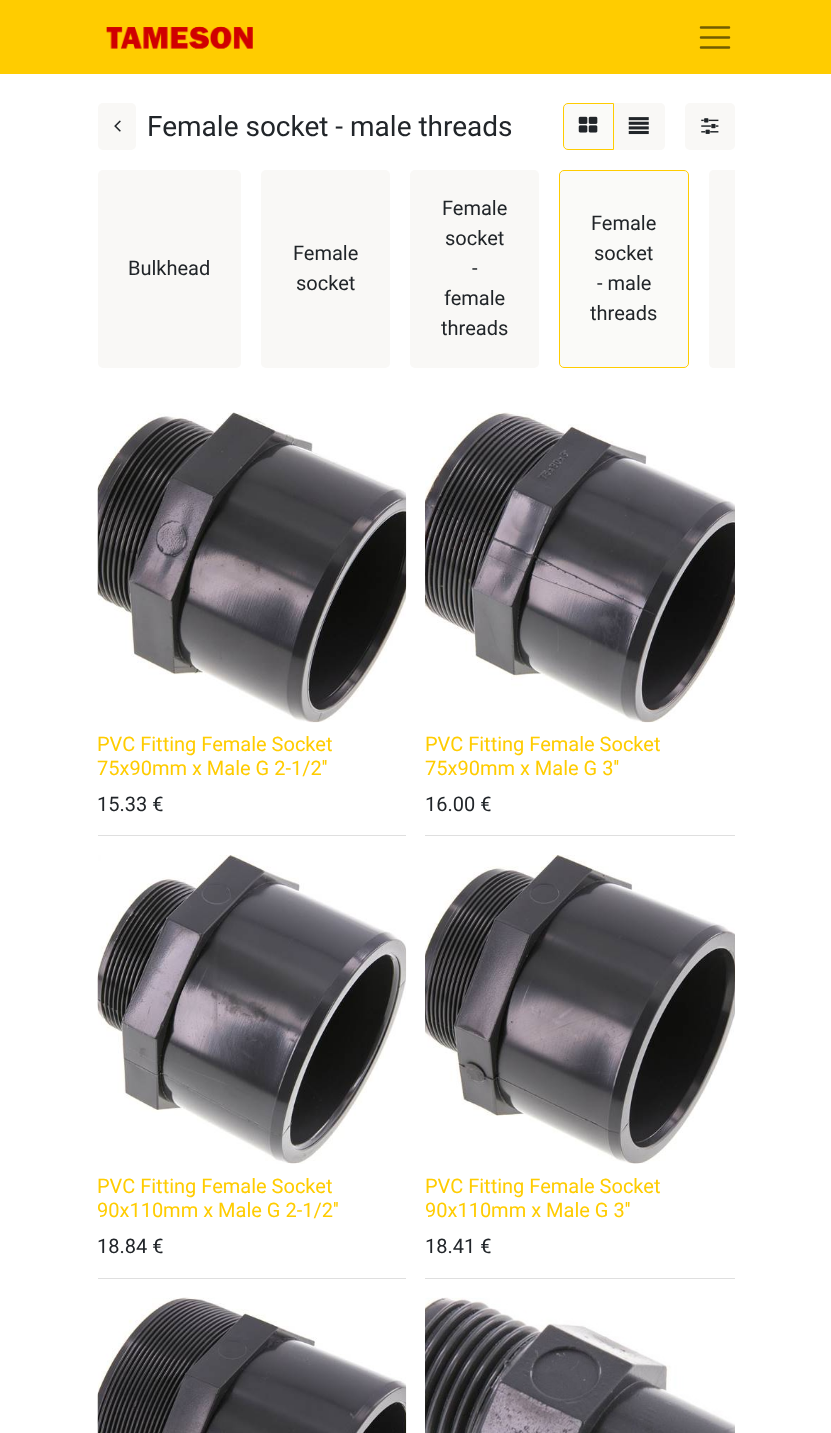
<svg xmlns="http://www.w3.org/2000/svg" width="831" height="1433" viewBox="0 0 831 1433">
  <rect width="100%" height="100%" fill="#ffffff"/>
  <rect x="0" y="0" width="831" height="74" fill="#ffcc00"/>
  <image x="106" y="26" width="147" height="23" href="img1.png"/>
  <path d="M701 27.5H729M701 37.5H729M701 47.5H729" fill="none" stroke="#735c00" stroke-width="2.5" stroke-linecap="round"/>
  <rect x="98" y="103" width="38" height="47" rx="5" fill="#f9f8f6"/>
  <image x="114" y="120" width="7" height="12" href="img2.png"/>
  <text x="147" y="136" font-family="Roboto" font-size="28" fill="#212529">Female socket - male threads</text>
  <path d="M613 103H660C663 103 665 105 665 108V145C665 148 663 150 660 150H613Z" fill="#f9f8f6"/>
  <path d="M568 103.5H613.5V149.5H568C565.5 149.5 563.5 147.5 563.5 145V108C563.5 105.5 565.5 103.5 568 103.5Z" fill="#fafaf8" stroke="#ffcc00"/>
  <image x="578" y="116" width="20" height="17" href="img3.png"/>
  <image x="628" y="117" width="21" height="18" href="img4.png"/>
  <rect x="685" y="103" width="50" height="47" rx="5" fill="#f9f8f6"/>
  <image x="701" y="118" width="18" height="16" href="img5.png"/>
  <rect x="98" y="170" width="143" height="198" rx="5" fill="#f9f8f6"/>
  <text x="128" y="275" font-family="Roboto" font-size="20" fill="#212529">Bulkhead</text>
  <rect x="261" y="170" width="129" height="198" rx="5" fill="#f9f8f6"/>
  <text x="293" y="260" font-family="Roboto" font-size="20" fill="#212529">Female</text>
  <text x="296" y="290" font-family="Roboto" font-size="20" fill="#212529">socket</text>
  <rect x="410" y="170" width="129" height="198" rx="5" fill="#f9f8f6"/>
  <text x="442" y="215" font-family="Roboto" font-size="20" fill="#212529">Female</text>
  <text x="445" y="245" font-family="Roboto" font-size="20" fill="#212529">socket</text>
  <text x="472" y="275" font-family="Roboto" font-size="20" fill="#212529">-</text>
  <text x="444" y="305" font-family="Roboto" font-size="20" fill="#212529">female</text>
  <text x="441" y="335" font-family="Roboto" font-size="20" fill="#212529">threads</text>
  <rect x="559.5" y="170.5" width="129" height="197" rx="4.5" fill="#fafaf8" stroke="#ffcc00"/>
  <text x="591" y="230" font-family="Roboto" font-size="20" fill="#212529">Female</text>
  <text x="594" y="260" font-family="Roboto" font-size="20" fill="#212529">socket</text>
  <text x="597" y="290" font-family="Roboto" font-size="20" fill="#212529">- male</text>
  <text x="590" y="320" font-family="Roboto" font-size="20" fill="#212529">threads</text>
  <path d="M714 170H735V368H714C711 368 709 366 709 363V175C709 172 711 170 714 170Z" fill="#f9f8f6"/>
  <rect x="98" y="835" width="308" height="1" fill="#dfdfdf"/>
  <image x="97" y="412" width="310" height="311" href="img6.png"/>
  <text x="97" y="751" font-family="Roboto" font-size="20" fill="#ffcc00">PVC Fitting Female Socket</text>
  <text x="97" y="775" font-family="Roboto" font-size="20" fill="#ffcc00">75x90mm x Male G 2-1/2''</text>
  <text x="97" y="811" font-family="Roboto" font-size="20" fill="#212529">15.33 €</text>
  <rect x="425" y="835" width="310" height="1" fill="#dfdfdf"/>
  <image x="425" y="412" width="310" height="311" href="img7.png"/>
  <text x="425" y="751" font-family="Roboto" font-size="20" fill="#ffcc00">PVC Fitting Female Socket</text>
  <text x="425" y="775" font-family="Roboto" font-size="20" fill="#ffcc00">75x90mm x Male G 3''</text>
  <text x="425" y="811" font-family="Roboto" font-size="20" fill="#212529">16.00 €</text>
  <rect x="98" y="1278" width="308" height="1" fill="#dfdfdf"/>
  <image x="97" y="855" width="310" height="309" href="img8.png"/>
  <text x="97" y="1193" font-family="Roboto" font-size="20" fill="#ffcc00">PVC Fitting Female Socket</text>
  <text x="97" y="1217" font-family="Roboto" font-size="20" fill="#ffcc00">90x110mm x Male G 2-1/2''</text>
  <text x="97" y="1253" font-family="Roboto" font-size="20" fill="#212529">18.84 €</text>
  <rect x="425" y="1278" width="310" height="1" fill="#dfdfdf"/>
  <image x="425" y="855" width="310" height="309" href="img9.png"/>
  <text x="425" y="1193" font-family="Roboto" font-size="20" fill="#ffcc00">PVC Fitting Female Socket</text>
  <text x="425" y="1217" font-family="Roboto" font-size="20" fill="#ffcc00">90x110mm x Male G 3''</text>
  <text x="425" y="1253" font-family="Roboto" font-size="20" fill="#212529">18.41 €</text>
  <image x="97" y="1297" width="310" height="136" href="img10.png"/>
  <image x="425" y="1297" width="310" height="136" href="img11.png"/>
</svg>
